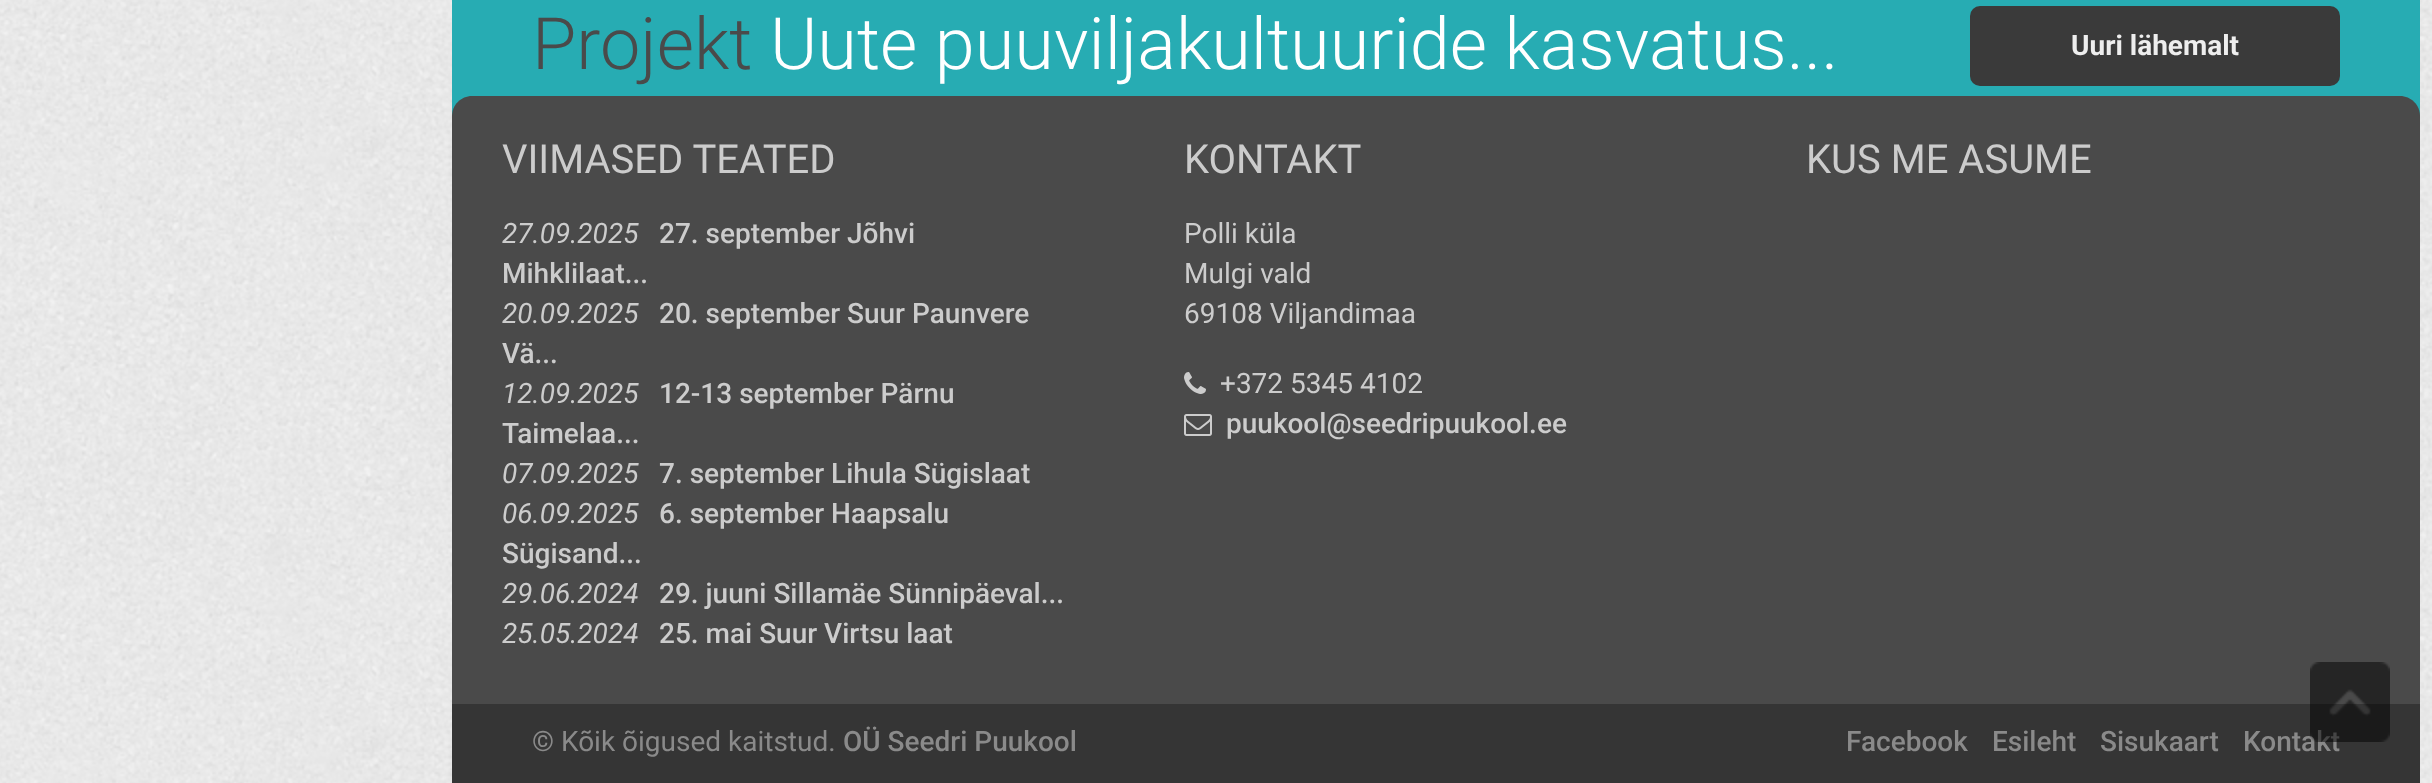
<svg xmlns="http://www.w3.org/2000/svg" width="2432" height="783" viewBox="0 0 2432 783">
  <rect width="100%" height="100%" fill="#ffffff"/>
  <image x="0" y="0" width="2432" height="783" href="img1.png"/>
  <rect x="452" y="0" width="1968" height="116" fill="#27acb3"/>
  <text x="532" y="69" font-family="Roboto" font-size="72" font-weight="300" fill="#4a4a4a">Projekt</text>
  <text x="770" y="69" font-family="Roboto" font-size="72" font-weight="300" fill="#ffffff">Uute puuviljakultuuride kasvatus...</text>
  <rect x="1970" y="6" width="370" height="80" rx="10" fill="#3a3a3a"/>
  <text x="2071" y="55" font-family="Roboto" font-size="28" font-weight="bold" fill="#eeeeee">Uuri lähemalt</text>
  <path d="M472 96H2400C2411 96 2420 105 2420 116V704H452V116C452 105 461 96 472 96Z" fill="#4a4a4a"/>
  <text x="502" y="173" font-family="Roboto" font-size="40" fill="#cccccc">VIIMASED TEATED</text>
  <text x="502" y="243" font-family="Roboto" font-size="28" font-style="italic" fill="#cccccc">27.09.2025</text>
  <text x="659" y="243" font-family="Roboto" font-size="28" font-weight="500" fill="#cccccc">27. september Jõhvi</text>
  <text x="502" y="283" font-family="Roboto" font-size="28" font-weight="500" fill="#cccccc">Mihklilaat...</text>
  <text x="502" y="323" font-family="Roboto" font-size="28" font-style="italic" fill="#cccccc">20.09.2025</text>
  <text x="659" y="323" font-family="Roboto" font-size="28" font-weight="500" fill="#cccccc">20. september Suur Paunvere</text>
  <text x="502" y="363" font-family="Roboto" font-size="28" font-weight="500" fill="#cccccc">Vä...</text>
  <text x="502" y="403" font-family="Roboto" font-size="28" font-style="italic" fill="#cccccc">12.09.2025</text>
  <text x="659" y="403" font-family="Roboto" font-size="28" font-weight="500" fill="#cccccc">12-13 september Pärnu</text>
  <text x="502" y="443" font-family="Roboto" font-size="28" font-weight="500" fill="#cccccc">Taimelaa...</text>
  <text x="502" y="483" font-family="Roboto" font-size="28" font-style="italic" fill="#cccccc">07.09.2025</text>
  <text x="659" y="483" font-family="Roboto" font-size="28" font-weight="500" fill="#cccccc">7. september Lihula Sügislaat</text>
  <text x="502" y="523" font-family="Roboto" font-size="28" font-style="italic" fill="#cccccc">06.09.2025</text>
  <text x="659" y="523" font-family="Roboto" font-size="28" font-weight="500" fill="#cccccc">6. september Haapsalu</text>
  <text x="502" y="563" font-family="Roboto" font-size="28" font-weight="500" fill="#cccccc">Sügisand...</text>
  <text x="502" y="603" font-family="Roboto" font-size="28" font-style="italic" fill="#cccccc">29.06.2024</text>
  <text x="659" y="603" font-family="Roboto" font-size="28" font-weight="500" fill="#cccccc">29. juuni Sillamäe Sünnipäeval...</text>
  <text x="502" y="643" font-family="Roboto" font-size="28" font-style="italic" fill="#cccccc">25.05.2024</text>
  <text x="659" y="643" font-family="Roboto" font-size="28" font-weight="500" fill="#cccccc">25. mai Suur Virtsu laat</text>
  <text x="1184" y="173" font-family="Roboto" font-size="40" fill="#cccccc">KONTAKT</text>
  <text x="1184" y="243" font-family="Roboto" font-size="28" fill="#cccccc">Polli küla</text>
  <text x="1184" y="283" font-family="Roboto" font-size="28" fill="#cccccc">Mulgi vald</text>
  <text x="1184" y="323" font-family="Roboto" font-size="28" fill="#cccccc">69108 Viljandimaa</text>
  <image x="1184" y="372" width="22" height="22" href="img2.png"/>
  <text x="1220" y="393" font-family="Roboto" font-size="28" fill="#cccccc">+372 5345 4102</text>
  <image x="1184" y="414" width="28" height="22" href="img3.png"/>
  <text x="1226" y="433" font-family="Roboto" font-size="28" font-weight="500" fill="#cccccc">puukool@seedripuukool.ee</text>
  <text x="1806" y="173" font-family="Roboto" font-size="40" fill="#cccccc">KUS ME ASUME</text>
  <rect x="452" y="704" width="1968" height="79" fill="#353535"/>
  <text x="532" y="751" font-family="Roboto" font-size="28" fill="#8a8a8a">© Kõik õigused kaitstud.</text>
  <text x="843" y="751" font-family="Roboto" font-size="28" font-weight="500" fill="#8a8a8a">OÜ Seedri Puukool</text>
  <text x="1846" y="751" font-family="Roboto" font-size="28" font-weight="500" fill="#8a8a8a">Facebook</text>
  <text x="1992" y="751" font-family="Roboto" font-size="28" font-weight="500" fill="#8a8a8a">Esileht</text>
  <text x="2100" y="751" font-family="Roboto" font-size="28" font-weight="500" fill="#8a8a8a">Sisukaart</text>
  <text x="2243" y="751" font-family="Roboto" font-size="28" font-weight="500" fill="#8a8a8a">Kontakt</text>
  <image x="2310" y="662" width="80" height="80" href="img4.png"/>
</svg>
